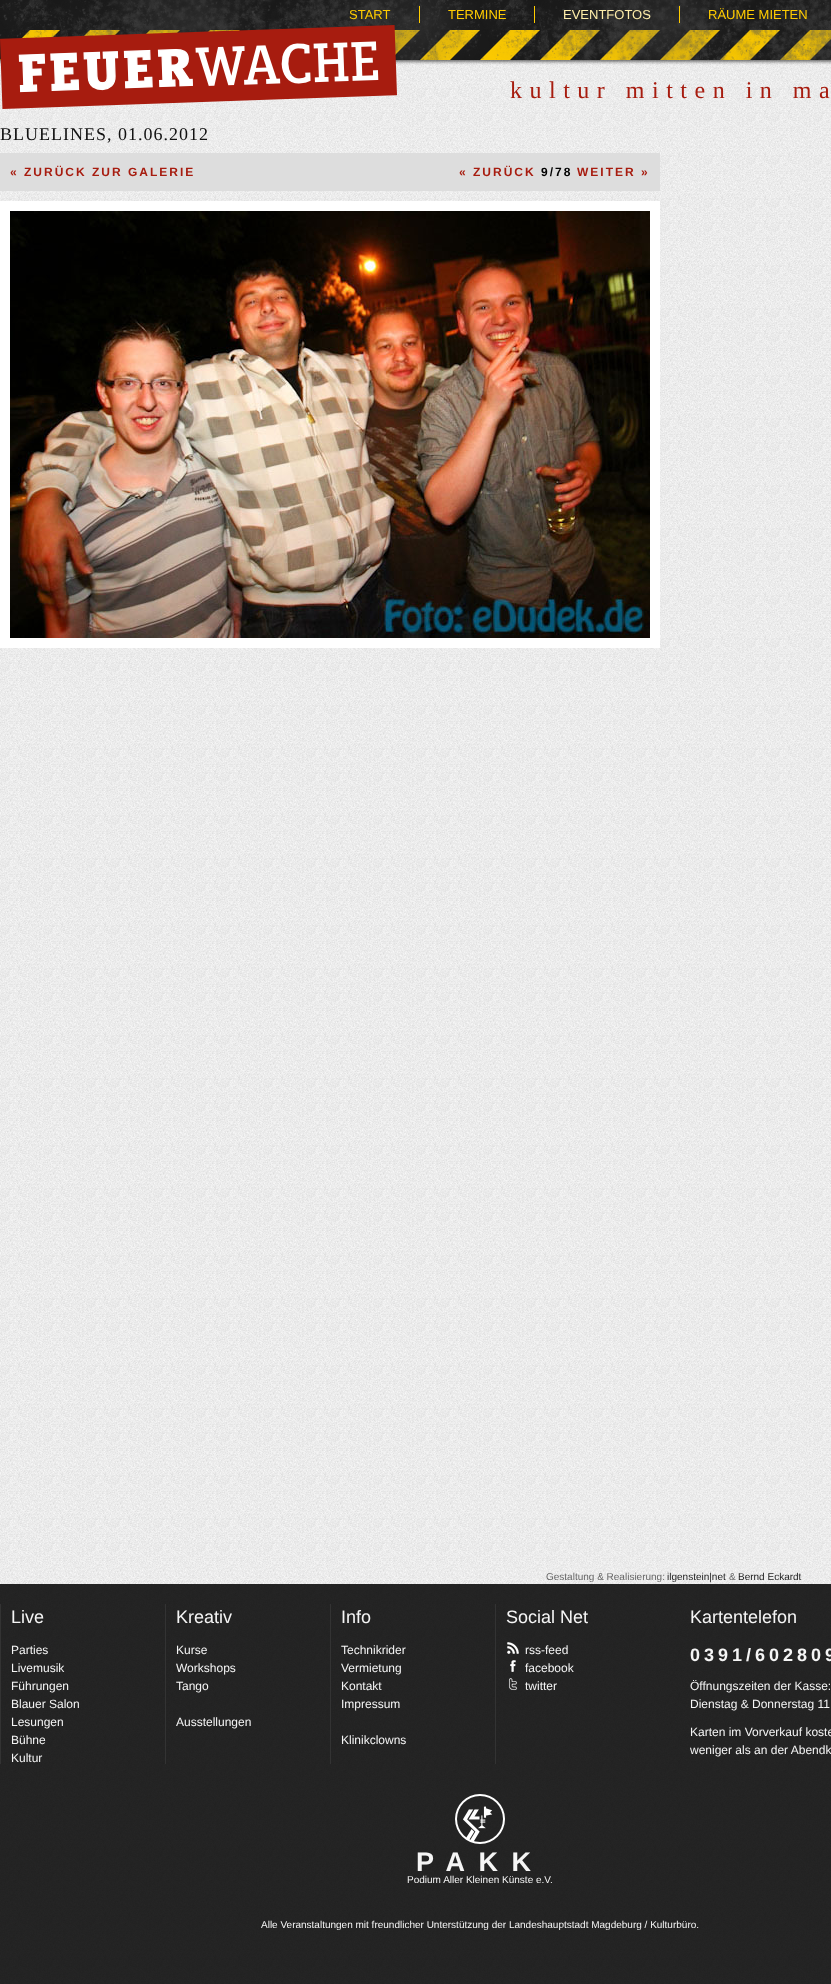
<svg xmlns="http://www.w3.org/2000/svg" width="831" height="1984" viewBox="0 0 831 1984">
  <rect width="100%" height="100%" fill="#ffffff"/>
  <image x="0" y="60" width="831" height="1924" href="img1.png"/>
  <image x="0" y="0" width="831" height="65" href="img2.png"/>
  <text x="349" y="19" font-family="Liberation Sans" font-size="13" fill="#ffcc00">START</text>
  <rect x="419" y="6" width="1" height="17" fill="#ffcc00"/>
  <text x="448" y="19" font-family="Liberation Sans" font-size="13" fill="#ffcc00">TERMINE</text>
  <rect x="534" y="6" width="1" height="17" fill="#ffcc00"/>
  <text x="563" y="19" font-family="Liberation Sans" font-size="13" fill="#ffeeaa">EVENTFOTOS</text>
  <rect x="679" y="6" width="1" height="17" fill="#ffcc00"/>
  <text x="708" y="19" font-family="Liberation Sans" font-size="13" fill="#ffcc00">RÄUME MIETEN</text>
  <image x="0" y="25" width="397" height="84" href="img3.png"/>
  <text x="510" y="98" font-family="Liberation Serif" font-size="24" letter-spacing="7.5" fill="#a71c0f">kultur mitten in ma</text>
  <text x="0" y="140" font-family="Liberation Serif" font-size="18" letter-spacing="1" fill="#111111">BLUELINES, 01.06.2012</text>
  <rect x="0" y="153" width="660" height="38" fill="#dddddd"/>
  <text x="10" y="176" font-family="Liberation Sans" font-size="12" font-weight="bold" letter-spacing="2" fill="#a71c0f">« ZURÜCK ZUR GALERIE</text>
  <text x="459" y="176" font-family="Liberation Sans" font-size="12" font-weight="bold" letter-spacing="2" fill="#a71c0f">« ZURÜCK</text>
  <text x="541" y="176" font-family="Liberation Sans" font-size="12" font-weight="bold" letter-spacing="2" fill="#000000">9/78</text>
  <text x="577" y="176" font-family="Liberation Sans" font-size="12" font-weight="bold" letter-spacing="2" fill="#a71c0f">WEITER »</text>
  <rect x="0" y="201" width="660" height="447" fill="#ffffff"/>
  <image x="10" y="211" width="640" height="427" href="img4.png"/>
  <rect x="0" y="1584" width="831" height="400" fill="#000000" fill-opacity="0.85"/>
  <text x="546" y="1580" font-family="Liberation Sans" font-size="10" fill="#666666">Gestaltung &amp; Realisierung:</text>
  <text x="667" y="1580" font-family="Liberation Sans" font-size="10" fill="#222222">ilgenstein|net</text>
  <text x="729" y="1580" font-family="Liberation Sans" font-size="10" fill="#666666">&amp;</text>
  <text x="738" y="1580" font-family="Liberation Sans" font-size="10" fill="#222222">Bernd Eckardt</text>
  <rect x="0" y="1604" width="1" height="160" fill="#333333"/>
  <text x="11" y="1623" font-family="Liberation Sans" font-size="18" fill="#f5f5f5">Live</text>
  <text x="11" y="1654" font-family="Liberation Sans" font-size="12" fill="#f5f5f5">Parties</text>
  <text x="11" y="1672" font-family="Liberation Sans" font-size="12" fill="#f5f5f5">Livemusik</text>
  <text x="11" y="1690" font-family="Liberation Sans" font-size="12" fill="#f5f5f5">Führungen</text>
  <text x="11" y="1708" font-family="Liberation Sans" font-size="12" fill="#f5f5f5">Blauer Salon</text>
  <text x="11" y="1726" font-family="Liberation Sans" font-size="12" fill="#f5f5f5">Lesungen</text>
  <text x="11" y="1744" font-family="Liberation Sans" font-size="12" fill="#f5f5f5">Bühne</text>
  <text x="11" y="1762" font-family="Liberation Sans" font-size="12" fill="#f5f5f5">Kultur</text>
  <rect x="165" y="1604" width="1" height="160" fill="#333333"/>
  <text x="176" y="1623" font-family="Liberation Sans" font-size="18" fill="#f5f5f5">Kreativ</text>
  <text x="176" y="1654" font-family="Liberation Sans" font-size="12" fill="#f5f5f5">Kurse</text>
  <text x="176" y="1672" font-family="Liberation Sans" font-size="12" fill="#f5f5f5">Workshops</text>
  <text x="176" y="1690" font-family="Liberation Sans" font-size="12" fill="#f5f5f5">Tango</text>
  <text x="176" y="1726" font-family="Liberation Sans" font-size="12" fill="#f5f5f5">Ausstellungen</text>
  <rect x="330" y="1604" width="1" height="160" fill="#333333"/>
  <text x="341" y="1623" font-family="Liberation Sans" font-size="18" fill="#f5f5f5">Info</text>
  <text x="341" y="1654" font-family="Liberation Sans" font-size="12" fill="#f5f5f5">Technikrider</text>
  <text x="341" y="1672" font-family="Liberation Sans" font-size="12" fill="#f5f5f5">Vermietung</text>
  <text x="341" y="1690" font-family="Liberation Sans" font-size="12" fill="#f5f5f5">Kontakt</text>
  <text x="341" y="1708" font-family="Liberation Sans" font-size="12" fill="#f5f5f5">Impressum</text>
  <text x="341" y="1744" font-family="Liberation Sans" font-size="12" fill="#f5f5f5">Klinikclowns</text>
  <rect x="495" y="1604" width="1" height="160" fill="#333333"/>
  <text x="506" y="1623" font-family="Liberation Sans" font-size="18" fill="#f5f5f5">Social Net</text>
  <image x="507" y="1642" width="12" height="12" href="img5.png"/>
  <text x="525" y="1654" font-family="Liberation Sans" font-size="12" fill="#f5f5f5">rss-feed</text>
  <image x="510" y="1660" width="6" height="12" href="img6.png"/>
  <text x="525" y="1672" font-family="Liberation Sans" font-size="12" fill="#f5f5f5">facebook</text>
  <image x="508" y="1678" width="10" height="13" href="img7.png"/>
  <text x="525" y="1690" font-family="Liberation Sans" font-size="12" fill="#f5f5f5">twitter</text>
  <text x="690" y="1623" font-family="Liberation Sans" font-size="18" fill="#f5f5f5">Kartentelefon</text>
  <text x="690" y="1661" font-family="Liberation Sans" font-size="18" font-weight="bold" letter-spacing="4" fill="#f5f5f5">0391/602809</text>
  <text x="690" y="1690" font-family="Liberation Sans" font-size="12" fill="#f5f5f5">Öffnungszeiten der Kasse:</text>
  <text x="690" y="1708" font-family="Liberation Sans" font-size="12" fill="#f5f5f5">Dienstag &amp; Donnerstag 11</text>
  <text x="690" y="1736" font-family="Liberation Sans" font-size="12" fill="#f5f5f5">Karten im Vorverkauf koste</text>
  <text x="690" y="1754" font-family="Liberation Sans" font-size="12" fill="#f5f5f5">weniger als an der Abendk</text>
  <image x="455" y="1794" width="50" height="50" href="img8.png"/>
  <text x="416" y="1871" font-family="Liberation Sans" font-size="27" font-weight="bold" letter-spacing="13.5" fill="#f5f5f5">PAKK</text>
  <text x="407" y="1883" font-family="Liberation Sans" font-size="10" fill="#f5f5f5">Podium Aller Kleinen Künste e.V.</text>
  <text x="261" y="1928" font-family="Liberation Sans" font-size="10" fill="#f5f5f5">Alle Veranstaltungen mit freundlicher Unterstützung der Landeshauptstadt Magdeburg / Kulturbüro.</text>
</svg>
